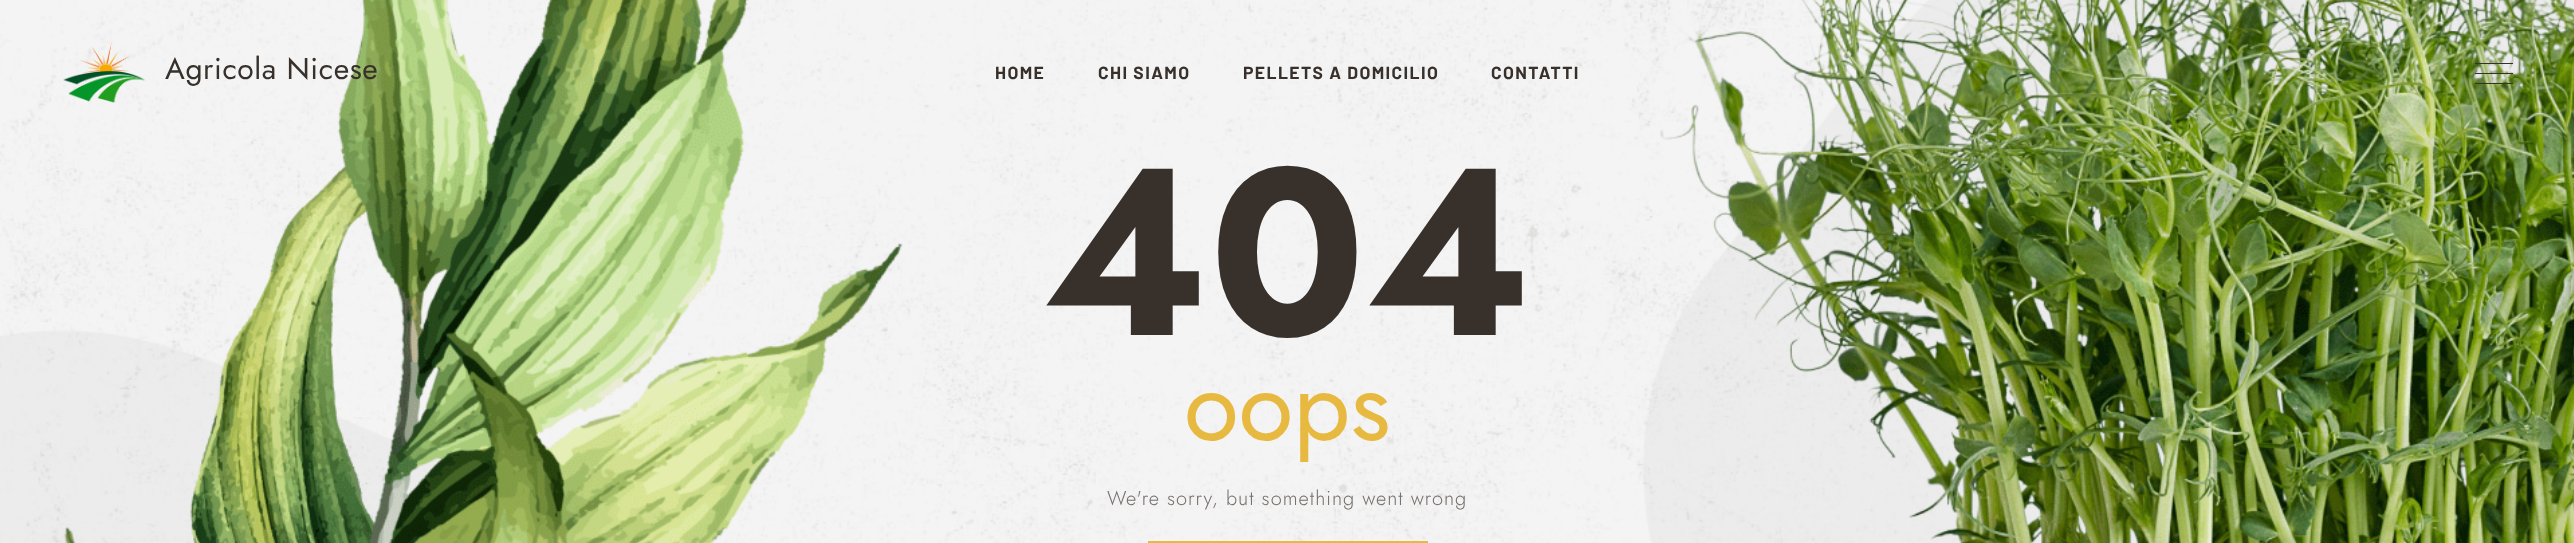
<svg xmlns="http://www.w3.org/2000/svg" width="2574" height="543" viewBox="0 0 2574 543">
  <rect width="100%" height="100%" fill="#ffffff"/>
  <image x="0" y="0" width="2574" height="543" href="img2.png"/>
  <image x="63" y="42" width="82" height="61" href="img1.png"/>
  <text x="165" y="79" font-family="Jost" font-size="30" letter-spacing="0.6" fill="#38302b">Agricola Nicese</text>
  <text x="995" y="79" font-family="Barlow" font-size="17.5" font-weight="bold" letter-spacing="1.4" fill="#38302b">HOME</text>
  <text x="1098" y="79" font-family="Barlow" font-size="17.5" font-weight="bold" letter-spacing="1.4" fill="#38302b">CHI SIAMO</text>
  <text x="1243" y="79" font-family="Barlow" font-size="17.5" font-weight="bold" letter-spacing="1.4" fill="#38302b">PELLETS A DOMICILIO</text>
  <text x="1491" y="79" font-family="Barlow" font-size="17.5" font-weight="bold" letter-spacing="1.4" fill="#38302b">CONTATTI</text>
  <rect x="2475" y="63" width="38" height="1" fill="#38302b"/>
  <rect x="2475" y="83" width="38" height="1" fill="#38302b"/>
  <rect x="2475" y="73" width="38" height="1" fill="#38302b"/>
  <text x="1043" y="335" font-family="Jost" font-size="237.5" font-weight="bold" fill="#38302b">404</text>
  <text x="1184" y="440" font-family="Jost" font-size="100" fill="#e8b941">oops</text>
  <text x="1107" y="505" font-family="Jost" font-size="20" font-weight="300" letter-spacing="1" fill="#76706d">We're sorry, but something went wrong</text>
  <rect x="1148" y="541" width="280" height="2" fill="#e8b941"/>
</svg>
